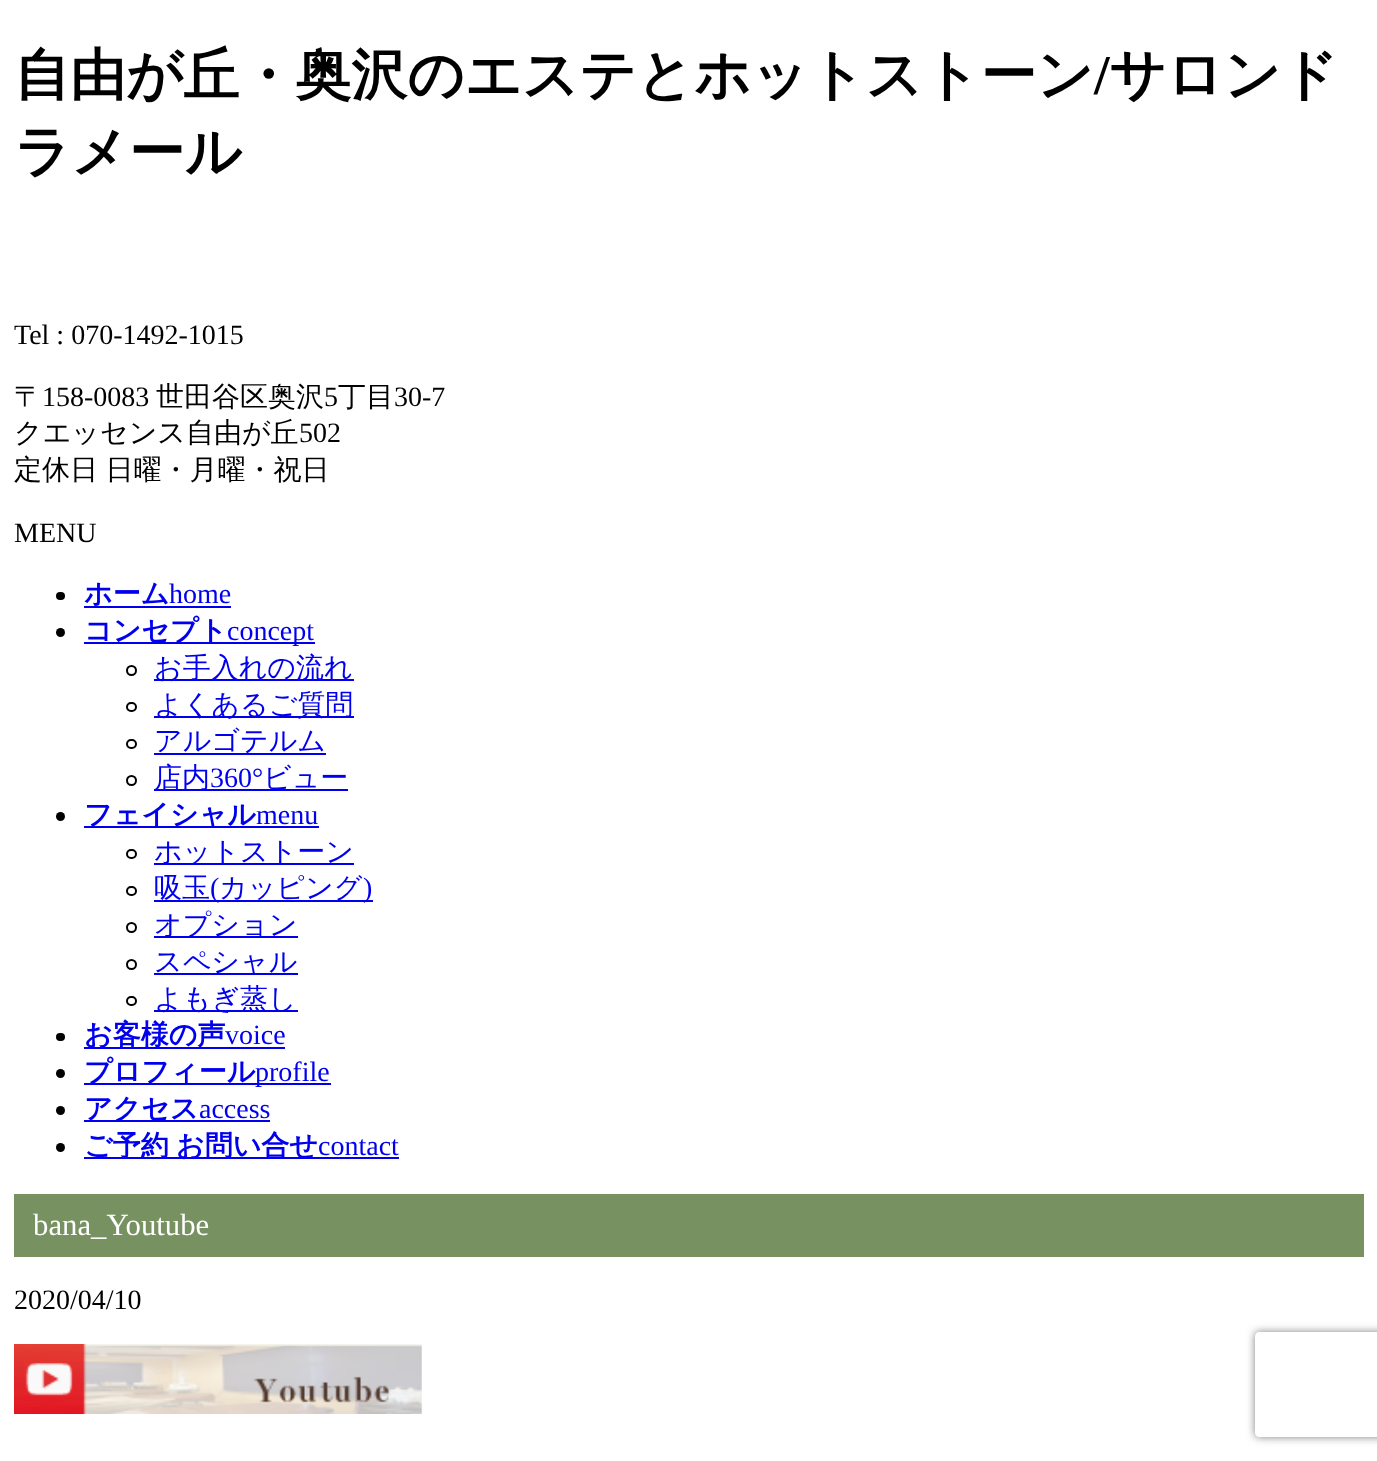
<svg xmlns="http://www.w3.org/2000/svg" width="1377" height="1461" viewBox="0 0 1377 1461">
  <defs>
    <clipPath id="clip1"><path d="M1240 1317H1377V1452H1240ZM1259 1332H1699C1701 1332 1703 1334 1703 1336V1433C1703 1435 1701 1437 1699 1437H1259C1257 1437 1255 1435 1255 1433V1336C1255 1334 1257 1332 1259 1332Z" clip-rule="evenodd"/></clipPath>
    <filter id="blur1" x="-50%" y="-200%" width="200%" height="500%"><feGaussianBlur stdDeviation="4.5"/></filter>
  </defs>
  <rect width="100%" height="100%" fill="#ffffff"/>
  <text x="14" y="94" font-family="WenQuanYi Zen Hei" font-size="56" font-weight="bold" fill="#000000">自由が丘・奥沢のエステとホットストーン</text>
  <text x="1094" y="94" font-family="Liberation Serif" font-size="56" font-weight="bold" fill="#000000">/</text>
  <text x="1109" y="94" font-family="WenQuanYi Zen Hei" font-size="56" font-weight="bold" fill="#000000">サロンド</text>
  <text x="14" y="171" font-family="WenQuanYi Zen Hei" font-size="56" font-weight="bold" fill="#000000">ラメール</text>
  <text x="14" y="344" font-family="Liberation Serif" font-size="28" fill="#000000">Tel : 070-1492-1015</text>
  <text x="14" y="406" font-family="WenQuanYi Zen Hei" font-size="28" font-weight="500" fill="#000000">〒</text>
  <text x="42" y="406" font-family="Liberation Serif" font-size="28" fill="#000000">158-0083</text>
  <text x="156" y="406" font-family="WenQuanYi Zen Hei" font-size="28" font-weight="500" fill="#000000">世田谷区奥沢</text>
  <text x="324" y="406" font-family="Liberation Serif" font-size="28" fill="#000000">5</text>
  <text x="338" y="406" font-family="WenQuanYi Zen Hei" font-size="28" font-weight="500" fill="#000000">丁目</text>
  <text x="394" y="406" font-family="Liberation Serif" font-size="28" fill="#000000">30-7</text>
  <text x="14" y="442" font-family="WenQuanYi Zen Hei" font-size="28" font-weight="500" fill="#000000">クエッセンス自由が丘</text>
  <text x="299" y="442" font-family="Liberation Serif" font-size="28" fill="#000000">502</text>
  <text x="14" y="479" word-spacing="-1" font-family="WenQuanYi Zen Hei" font-size="28" font-weight="500" fill="#000000">定休日 日曜・月曜・祝日</text>
  <text x="14" y="542" font-family="Liberation Serif" font-size="28" fill="#000000">MENU</text>
  <rect x="56" y="592" width="9" height="8" rx="4" fill="#000000"/>
  <text x="84" y="603" font-family="WenQuanYi Zen Hei" font-size="28" font-weight="bold" fill="#0000ee">ホーム</text>
  <rect x="84" y="606" width="147" height="2" fill="#0000ee"/>
  <text x="169" y="603" font-family="Liberation Serif" font-size="28" fill="#0000ee">home</text>
  <circle cx="60.5" cy="632.5" r="4.5" fill="#000000"/>
  <rect x="84" y="642" width="231" height="2" fill="#0000ee"/>
  <text x="84" y="640" font-family="WenQuanYi Zen Hei" font-size="28" font-weight="bold" fill="#0000ee">コンセプト</text>
  <text x="227" y="640" font-family="Liberation Serif" font-size="28" fill="#0000ee">concept</text>
  <circle cx="131.5" cy="670.5" r="4.5" fill="none" stroke="#000000" stroke-width="2"/>
  <rect x="154" y="679" width="200" height="2" fill="#0000ee"/>
  <text x="154" y="677" font-family="WenQuanYi Zen Hei" font-size="28" font-weight="500" fill="#0000ee">お手入れの流れ</text>
  <rect x="127" y="703" width="9" height="8" rx="4" fill="none" stroke="#000000" stroke-width="2"/>
  <rect x="154" y="716" width="200" height="2" fill="#0000ee"/>
  <text x="154" y="714" font-family="WenQuanYi Zen Hei" font-size="28" font-weight="500" fill="#0000ee">よくあるご質問</text>
  <rect x="127" y="740" width="9" height="8" rx="4" fill="none" stroke="#000000" stroke-width="2"/>
  <rect x="154" y="753" width="172" height="2" fill="#0000ee"/>
  <text x="154" y="750" font-family="WenQuanYi Zen Hei" font-size="28" font-weight="500" fill="#0000ee">アルゴテルム</text>
  <circle cx="131.5" cy="780.5" r="4.5" fill="none" stroke="#000000" stroke-width="2"/>
  <rect x="154" y="789" width="194" height="2" fill="#0000ee"/>
  <text x="154" y="787" font-family="WenQuanYi Zen Hei" font-size="28" font-weight="500" fill="#0000ee">店内</text>
  <text x="210" y="787" font-family="Liberation Serif" font-size="28" fill="#0000ee">360°</text>
  <text x="263" y="787" font-family="WenQuanYi Zen Hei" font-size="28" font-weight="500" fill="#0000ee">ビュー</text>
  <circle cx="60.5" cy="816.5" r="4.5" fill="#000000"/>
  <rect x="84" y="826" width="235" height="2" fill="#0000ee"/>
  <text x="84" y="824" font-family="WenQuanYi Zen Hei" font-size="28" font-weight="bold" fill="#0000ee">フェイシャル</text>
  <text x="256" y="824" font-family="Liberation Serif" font-size="28" fill="#0000ee">menu</text>
  <rect x="127" y="850" width="9" height="8" rx="4" fill="none" stroke="#000000" stroke-width="2"/>
  <rect x="154" y="863" width="200" height="2" fill="#0000ee"/>
  <text x="154" y="861" font-family="WenQuanYi Zen Hei" font-size="28" font-weight="500" fill="#0000ee">ホットストーン</text>
  <rect x="127" y="887" width="9" height="8" rx="4" fill="none" stroke="#000000" stroke-width="2"/>
  <text x="154" y="897" font-family="WenQuanYi Zen Hei" font-size="28" font-weight="500" fill="#0000ee">吸玉</text>
  <rect x="154" y="900" width="219" height="2" fill="#0000ee"/>
  <text x="210" y="897" font-family="Liberation Serif" font-size="28" fill="#0000ee">(</text>
  <text x="219" y="897" font-family="WenQuanYi Zen Hei" font-size="28" font-weight="500" fill="#0000ee">カッピング</text>
  <text x="363" y="897" font-family="Liberation Serif" font-size="28" fill="#0000ee">)</text>
  <circle cx="131.5" cy="927.5" r="4.5" fill="none" stroke="#000000" stroke-width="2"/>
  <rect x="154" y="936" width="144" height="2" fill="#0000ee"/>
  <text x="154" y="934" font-family="WenQuanYi Zen Hei" font-size="28" font-weight="500" fill="#0000ee">オプション</text>
  <circle cx="131.5" cy="964.5" r="4.5" fill="none" stroke="#000000" stroke-width="2"/>
  <rect x="154" y="973" width="144" height="2" fill="#0000ee"/>
  <text x="154" y="971" font-family="WenQuanYi Zen Hei" font-size="28" font-weight="500" fill="#0000ee">スペシャル</text>
  <rect x="127" y="997" width="9" height="8" rx="4" fill="none" stroke="#000000" stroke-width="2"/>
  <rect x="154" y="1010" width="144" height="2" fill="#0000ee"/>
  <text x="154" y="1008" font-family="WenQuanYi Zen Hei" font-size="28" font-weight="500" fill="#0000ee">よもぎ蒸し</text>
  <rect x="56" y="1033" width="9" height="8" rx="4" fill="#000000"/>
  <rect x="84" y="1047" width="201" height="2" fill="#0000ee"/>
  <text x="84" y="1044" font-family="WenQuanYi Zen Hei" font-size="28" font-weight="bold" fill="#0000ee">お客様の声</text>
  <text x="225" y="1044" font-family="Liberation Serif" font-size="28" fill="#0000ee">voice</text>
  <circle cx="60.5" cy="1073.5" r="4.5" fill="#000000"/>
  <rect x="84" y="1083" width="247" height="2" fill="#0000ee"/>
  <text x="84" y="1081" font-family="WenQuanYi Zen Hei" font-size="28" font-weight="bold" fill="#0000ee">プロフィール</text>
  <text x="255" y="1081" font-family="Liberation Serif" font-size="28" fill="#0000ee">profile</text>
  <circle cx="60.5" cy="1110.5" r="4.5" fill="#000000"/>
  <rect x="84" y="1120" width="186" height="2" fill="#0000ee"/>
  <text x="84" y="1118" font-family="WenQuanYi Zen Hei" font-size="28" font-weight="bold" fill="#0000ee">アクセス</text>
  <text x="199" y="1118" font-family="Liberation Serif" font-size="28" fill="#0000ee">access</text>
  <circle cx="60.5" cy="1147.5" r="4.5" fill="#000000"/>
  <rect x="84" y="1157" width="315" height="2" fill="#0000ee"/>
  <text x="84" y="1155" word-spacing="-1" font-family="WenQuanYi Zen Hei" font-size="28" font-weight="bold" fill="#0000ee">ご予約 お問い合せ</text>
  <text x="318" y="1155" font-family="Liberation Serif" font-size="28" fill="#0000ee">contact</text>
  <rect x="14" y="1194" width="1350" height="63" fill="#779161"/>
  <text x="33" y="1235" font-family="Liberation Serif" font-size="30.75" fill="#ffffff">bana_Youtube</text>
  <text x="14" y="1309" font-family="Liberation Serif" font-size="28" fill="#000000">2020/04/10</text>
  <image x="14" y="1344" width="408" height="70" href="img1.png"/>
  <g clip-path="url(#clip1)">
    <rect x="1255" y="1332" width="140" height="105" rx="4" fill="#808080" filter="url(#blur1)"/>
  </g>
</svg>
